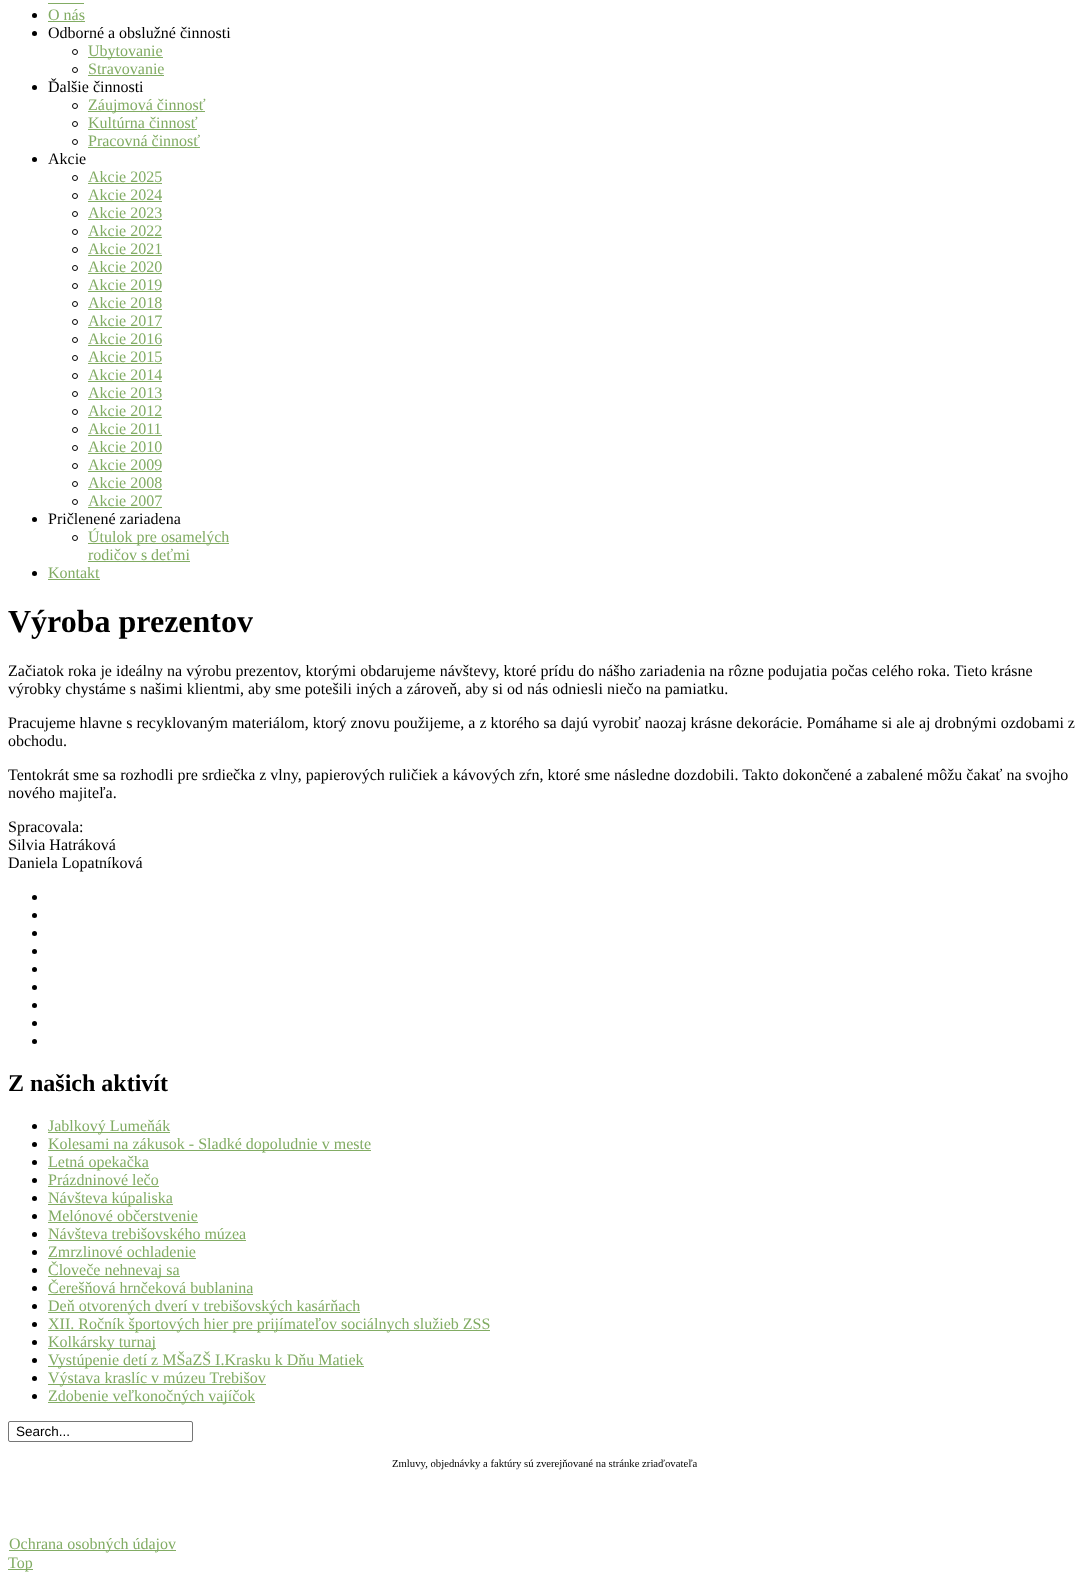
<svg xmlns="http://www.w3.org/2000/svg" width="1088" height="1580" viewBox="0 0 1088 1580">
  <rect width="100%" height="100%" fill="#ffffff"/>
  <rect x="48" y="3" width="36" height="1" fill="#82ac64"/>
  <circle cx="34.5" cy="15.5" r="2.5" fill="#000000"/>
  <text x="48" y="20" font-family="Liberation Serif" font-size="16" fill="#82ac64">O nás</text>
  <rect x="48" y="21" width="37" height="1" fill="#82ac64"/>
  <circle cx="34.5" cy="33.5" r="2.5" fill="#000000"/>
  <text x="48" y="38" font-family="Liberation Serif" font-size="16" fill="#000000">Odborné a obslužné činnosti</text>
  <circle cx="75" cy="52" r="2.5" fill="none" stroke="#000000"/>
  <rect x="88" y="57" width="75" height="1" fill="#82ac64"/>
  <text x="88" y="56" font-family="Liberation Serif" font-size="16" fill="#82ac64">Ubytovanie</text>
  <circle cx="75" cy="70" r="2.5" fill="none" stroke="#000000"/>
  <text x="88" y="74" font-family="Liberation Serif" font-size="16" fill="#82ac64">Stravovanie</text>
  <rect x="88" y="75" width="76" height="1" fill="#82ac64"/>
  <circle cx="34.5" cy="87.5" r="2.5" fill="#000000"/>
  <text x="48" y="92" font-family="Liberation Serif" font-size="16" fill="#000000">Ďalšie činnosti</text>
  <circle cx="75" cy="106" r="2.5" fill="none" stroke="#000000"/>
  <rect x="88" y="111" width="117" height="1" fill="#82ac64"/>
  <text x="88" y="110" font-family="Liberation Serif" font-size="16" fill="#82ac64">Záujmová činnosť</text>
  <circle cx="75" cy="124" r="2.5" fill="none" stroke="#000000"/>
  <text x="88" y="128" font-family="Liberation Serif" font-size="16" fill="#82ac64">Kultúrna činnosť</text>
  <rect x="88" y="129" width="109" height="1" fill="#82ac64"/>
  <circle cx="75" cy="142" r="2.5" fill="none" stroke="#000000"/>
  <text x="88" y="146" font-family="Liberation Serif" font-size="16" fill="#82ac64">Pracovná činnosť</text>
  <rect x="88" y="147" width="112" height="1" fill="#82ac64"/>
  <circle cx="34.5" cy="159.5" r="2.5" fill="#000000"/>
  <text x="48" y="164" font-family="Liberation Serif" font-size="16" fill="#000000">Akcie</text>
  <circle cx="75" cy="178" r="2.5" fill="none" stroke="#000000"/>
  <text x="88" y="182" font-family="Liberation Serif" font-size="16" fill="#82ac64">Akcie 2025</text>
  <rect x="88" y="183" width="74" height="1" fill="#82ac64"/>
  <circle cx="75" cy="196" r="2.5" fill="none" stroke="#000000"/>
  <text x="88" y="200" font-family="Liberation Serif" font-size="16" fill="#82ac64">Akcie 2024</text>
  <rect x="88" y="201" width="74" height="1" fill="#82ac64"/>
  <circle cx="75" cy="214" r="2.5" fill="none" stroke="#000000"/>
  <text x="88" y="218" font-family="Liberation Serif" font-size="16" fill="#82ac64">Akcie 2023</text>
  <rect x="88" y="219" width="74" height="1" fill="#82ac64"/>
  <circle cx="75" cy="232" r="2.5" fill="none" stroke="#000000"/>
  <text x="88" y="236" font-family="Liberation Serif" font-size="16" fill="#82ac64">Akcie 2022</text>
  <rect x="88" y="237" width="74" height="1" fill="#82ac64"/>
  <circle cx="75" cy="250" r="2.5" fill="none" stroke="#000000"/>
  <text x="88" y="254" font-family="Liberation Serif" font-size="16" fill="#82ac64">Akcie 2021</text>
  <rect x="88" y="255" width="74" height="1" fill="#82ac64"/>
  <circle cx="75" cy="268" r="2.5" fill="none" stroke="#000000"/>
  <text x="88" y="272" font-family="Liberation Serif" font-size="16" fill="#82ac64">Akcie 2020</text>
  <rect x="88" y="273" width="74" height="1" fill="#82ac64"/>
  <circle cx="75" cy="286" r="2.5" fill="none" stroke="#000000"/>
  <text x="88" y="290" font-family="Liberation Serif" font-size="16" fill="#82ac64">Akcie 2019</text>
  <rect x="88" y="291" width="74" height="1" fill="#82ac64"/>
  <circle cx="75" cy="304" r="2.5" fill="none" stroke="#000000"/>
  <text x="88" y="308" font-family="Liberation Serif" font-size="16" fill="#82ac64">Akcie 2018</text>
  <rect x="88" y="309" width="74" height="1" fill="#82ac64"/>
  <circle cx="75" cy="322" r="2.5" fill="none" stroke="#000000"/>
  <text x="88" y="326" font-family="Liberation Serif" font-size="16" fill="#82ac64">Akcie 2017</text>
  <rect x="88" y="327" width="74" height="1" fill="#82ac64"/>
  <circle cx="75" cy="340" r="2.5" fill="none" stroke="#000000"/>
  <text x="88" y="344" font-family="Liberation Serif" font-size="16" fill="#82ac64">Akcie 2016</text>
  <rect x="88" y="345" width="74" height="1" fill="#82ac64"/>
  <circle cx="75" cy="358" r="2.5" fill="none" stroke="#000000"/>
  <text x="88" y="362" font-family="Liberation Serif" font-size="16" fill="#82ac64">Akcie 2015</text>
  <rect x="88" y="363" width="74" height="1" fill="#82ac64"/>
  <circle cx="75" cy="376" r="2.5" fill="none" stroke="#000000"/>
  <text x="88" y="380" font-family="Liberation Serif" font-size="16" fill="#82ac64">Akcie 2014</text>
  <rect x="88" y="381" width="74" height="1" fill="#82ac64"/>
  <circle cx="75" cy="394" r="2.5" fill="none" stroke="#000000"/>
  <text x="88" y="398" font-family="Liberation Serif" font-size="16" fill="#82ac64">Akcie 2013</text>
  <rect x="88" y="399" width="74" height="1" fill="#82ac64"/>
  <circle cx="75" cy="412" r="2.5" fill="none" stroke="#000000"/>
  <text x="88" y="416" font-family="Liberation Serif" font-size="16" fill="#82ac64">Akcie 2012</text>
  <rect x="88" y="417" width="74" height="1" fill="#82ac64"/>
  <circle cx="75" cy="430" r="2.5" fill="none" stroke="#000000"/>
  <text x="88" y="434" font-family="Liberation Serif" font-size="16" fill="#82ac64">Akcie 2011</text>
  <rect x="88" y="435" width="74" height="1" fill="#82ac64"/>
  <circle cx="75" cy="448" r="2.5" fill="none" stroke="#000000"/>
  <text x="88" y="452" font-family="Liberation Serif" font-size="16" fill="#82ac64">Akcie 2010</text>
  <rect x="88" y="453" width="74" height="1" fill="#82ac64"/>
  <circle cx="75" cy="466" r="2.5" fill="none" stroke="#000000"/>
  <text x="88" y="470" font-family="Liberation Serif" font-size="16" fill="#82ac64">Akcie 2009</text>
  <rect x="88" y="471" width="74" height="1" fill="#82ac64"/>
  <circle cx="75" cy="484" r="2.5" fill="none" stroke="#000000"/>
  <text x="88" y="488" font-family="Liberation Serif" font-size="16" fill="#82ac64">Akcie 2008</text>
  <rect x="88" y="489" width="74" height="1" fill="#82ac64"/>
  <circle cx="75" cy="502" r="2.5" fill="none" stroke="#000000"/>
  <text x="88" y="506" font-family="Liberation Serif" font-size="16" fill="#82ac64">Akcie 2007</text>
  <rect x="88" y="507" width="74" height="1" fill="#82ac64"/>
  <circle cx="34.5" cy="519.5" r="2.5" fill="#000000"/>
  <text x="48" y="524" font-family="Liberation Serif" font-size="16" fill="#000000">Pričlenené zariadena</text>
  <circle cx="75" cy="538" r="2.5" fill="none" stroke="#000000"/>
  <rect x="88" y="543" width="141" height="1" fill="#82ac64"/>
  <text x="88" y="542" font-family="Liberation Serif" font-size="16" fill="#82ac64">Útulok pre osamelých</text>
  <text x="88" y="560" font-family="Liberation Serif" font-size="16" fill="#82ac64">rodičov s deťmi</text>
  <rect x="88" y="561" width="102" height="1" fill="#82ac64"/>
  <circle cx="34.5" cy="573.5" r="2.5" fill="#000000"/>
  <text x="48" y="578" font-family="Liberation Serif" font-size="16" fill="#82ac64">Kontakt</text>
  <rect x="48" y="579" width="52" height="1" fill="#82ac64"/>
  <text x="8" y="632" font-family="Liberation Serif" font-size="32" font-weight="bold" fill="#000000">Výroba prezentov</text>
  <text x="8" y="676" font-family="Liberation Serif" font-size="16" fill="#000000">Začiatok roka je ideálny na výrobu prezentov, ktorými obdarujeme návštevy, ktoré prídu do nášho zariadenia na rôzne podujatia počas celého roka. Tieto krásne</text>
  <text x="8" y="694" font-family="Liberation Serif" font-size="16" fill="#000000">výrobky chystáme s našimi klientmi, aby sme potešili iných a zároveň, aby si od nás odniesli niečo na pamiatku.</text>
  <text x="8" y="728" font-family="Liberation Serif" font-size="16" fill="#000000">Pracujeme hlavne s recyklovaným materiálom, ktorý znovu použijeme, a z ktorého sa dajú vyrobiť naozaj krásne dekorácie. Pomáhame si ale aj drobnými ozdobami z</text>
  <text x="8" y="746" font-family="Liberation Serif" font-size="16" fill="#000000">obchodu.</text>
  <text x="8" y="780" font-family="Liberation Serif" font-size="16" fill="#000000">Tentokrát sme sa rozhodli pre srdiečka z vlny, papierových ruličiek a kávových zŕn, ktoré sme následne dozdobili. Takto dokončené a zabalené môžu čakať na svojho</text>
  <text x="8" y="798" font-family="Liberation Serif" font-size="16" fill="#000000">nového majiteľa.</text>
  <text x="8" y="832" font-family="Liberation Serif" font-size="16" fill="#000000">Spracovala:</text>
  <text x="8" y="850" font-family="Liberation Serif" font-size="16" fill="#000000">Silvia Hatráková</text>
  <text x="8" y="868" font-family="Liberation Serif" font-size="16" fill="#000000">Daniela Lopatníková</text>
  <circle cx="34.5" cy="897.5" r="2.5" fill="#000000"/>
  <circle cx="34.5" cy="915.5" r="2.5" fill="#000000"/>
  <circle cx="34.5" cy="933.5" r="2.5" fill="#000000"/>
  <circle cx="34.5" cy="951.5" r="2.5" fill="#000000"/>
  <circle cx="34.5" cy="969.5" r="2.5" fill="#000000"/>
  <circle cx="34.5" cy="987.5" r="2.5" fill="#000000"/>
  <circle cx="34.5" cy="1005.5" r="2.5" fill="#000000"/>
  <circle cx="34.5" cy="1023.5" r="2.5" fill="#000000"/>
  <circle cx="34.5" cy="1041.5" r="2.5" fill="#000000"/>
  <text x="8" y="1091" font-family="Liberation Serif" font-size="24" font-weight="bold" fill="#000000">Z našich aktivít</text>
  <circle cx="34.5" cy="1126.5" r="2.5" fill="#000000"/>
  <rect x="48" y="1132" width="122" height="1" fill="#82ac64"/>
  <text x="48" y="1131" font-family="Liberation Serif" font-size="16" fill="#82ac64">Jablkový Lumeňák</text>
  <circle cx="34.5" cy="1144.5" r="2.5" fill="#000000"/>
  <rect x="48" y="1150" width="323" height="1" fill="#82ac64"/>
  <text x="48" y="1149" font-family="Liberation Serif" font-size="16" fill="#82ac64">Kolesami na zákusok - Sladké dopoludnie v meste</text>
  <circle cx="34.5" cy="1162.5" r="2.5" fill="#000000"/>
  <rect x="48" y="1168" width="101" height="1" fill="#82ac64"/>
  <text x="48" y="1167" font-family="Liberation Serif" font-size="16" fill="#82ac64">Letná opekačka</text>
  <circle cx="34.5" cy="1180.5" r="2.5" fill="#000000"/>
  <text x="48" y="1185" font-family="Liberation Serif" font-size="16" fill="#82ac64">Prázdninové lečo</text>
  <rect x="48" y="1186" width="111" height="1" fill="#82ac64"/>
  <circle cx="34.5" cy="1198.5" r="2.5" fill="#000000"/>
  <rect x="48" y="1204" width="125" height="1" fill="#82ac64"/>
  <text x="48" y="1203" font-family="Liberation Serif" font-size="16" fill="#82ac64">Návšteva kúpaliska</text>
  <circle cx="34.5" cy="1216.5" r="2.5" fill="#000000"/>
  <text x="48" y="1221" font-family="Liberation Serif" font-size="16" fill="#82ac64">Melónové občerstvenie</text>
  <rect x="48" y="1222" width="150" height="1" fill="#82ac64"/>
  <circle cx="34.5" cy="1234.5" r="2.5" fill="#000000"/>
  <text x="48" y="1239" font-family="Liberation Serif" font-size="16" fill="#82ac64">Návšteva trebišovského múzea</text>
  <rect x="48" y="1240" width="198" height="1" fill="#82ac64"/>
  <circle cx="34.5" cy="1252.5" r="2.5" fill="#000000"/>
  <text x="48" y="1257" font-family="Liberation Serif" font-size="16" fill="#82ac64">Zmrzlinové ochladenie</text>
  <rect x="48" y="1258" width="148" height="1" fill="#82ac64"/>
  <circle cx="34.5" cy="1270.5" r="2.5" fill="#000000"/>
  <rect x="48" y="1276" width="132" height="1" fill="#82ac64"/>
  <text x="48" y="1275" font-family="Liberation Serif" font-size="16" fill="#82ac64">Človeče nehnevaj sa</text>
  <circle cx="34.5" cy="1288.5" r="2.5" fill="#000000"/>
  <text x="48" y="1293" font-family="Liberation Serif" font-size="16" fill="#82ac64">Čerešňová hrnčeková bublanina</text>
  <rect x="48" y="1294" width="205" height="1" fill="#82ac64"/>
  <circle cx="34.5" cy="1306.5" r="2.5" fill="#000000"/>
  <rect x="48" y="1312" width="312" height="1" fill="#82ac64"/>
  <text x="48" y="1311" font-family="Liberation Serif" font-size="16" fill="#82ac64">Deň otvorených dverí v trebišovských kasárňach</text>
  <circle cx="34.5" cy="1324.5" r="2.5" fill="#000000"/>
  <rect x="48" y="1330" width="442" height="1" fill="#82ac64"/>
  <text x="48" y="1329" font-family="Liberation Serif" font-size="16" fill="#82ac64">XII. Ročník športových hier pre prijímateľov sociálnych služieb ZSS</text>
  <circle cx="34.5" cy="1342.5" r="2.5" fill="#000000"/>
  <rect x="48" y="1348" width="108" height="1" fill="#82ac64"/>
  <text x="48" y="1347" font-family="Liberation Serif" font-size="16" fill="#82ac64">Kolkársky turnaj</text>
  <circle cx="34.5" cy="1360.5" r="2.5" fill="#000000"/>
  <rect x="48" y="1366" width="316" height="1" fill="#82ac64"/>
  <text x="48" y="1365" font-family="Liberation Serif" font-size="16" fill="#82ac64">Vystúpenie detí z MŠaZŠ I.Krasku k Dňu Matiek</text>
  <circle cx="34.5" cy="1378.5" r="2.5" fill="#000000"/>
  <rect x="48" y="1384" width="218" height="1" fill="#82ac64"/>
  <text x="48" y="1383" font-family="Liberation Serif" font-size="16" fill="#82ac64">Výstava kraslíc v múzeu Trebišov</text>
  <circle cx="34.5" cy="1396.5" r="2.5" fill="#000000"/>
  <rect x="48" y="1402" width="207" height="1" fill="#82ac64"/>
  <text x="48" y="1401" font-family="Liberation Serif" font-size="16" fill="#82ac64">Zdobenie veľkonočných vajíčok</text>
  <rect x="8.5" y="1421.5" width="184" height="20" rx="1.5" fill="none" stroke="#767676"/>
  <text x="16" y="1436" font-family="Liberation Sans" font-size="13.5" fill="#000000">Search...</text>
  <text x="392" y="1467" font-family="Liberation Serif" font-size="10.7" fill="#000000">Zmluvy, objednávky a faktúry sú zverejňované na stránke zriaďovateľa</text>
  <rect x="9" y="1550" width="167" height="1" fill="#82ac64"/>
  <text x="9" y="1549" font-family="Liberation Serif" font-size="16" fill="#82ac64">Ochrana osobných údajov</text>
  <rect x="8" y="1569" width="25" height="1" fill="#82ac64"/>
  <text x="8" y="1568" font-family="Liberation Serif" font-size="16" fill="#82ac64">Top</text>
</svg>
